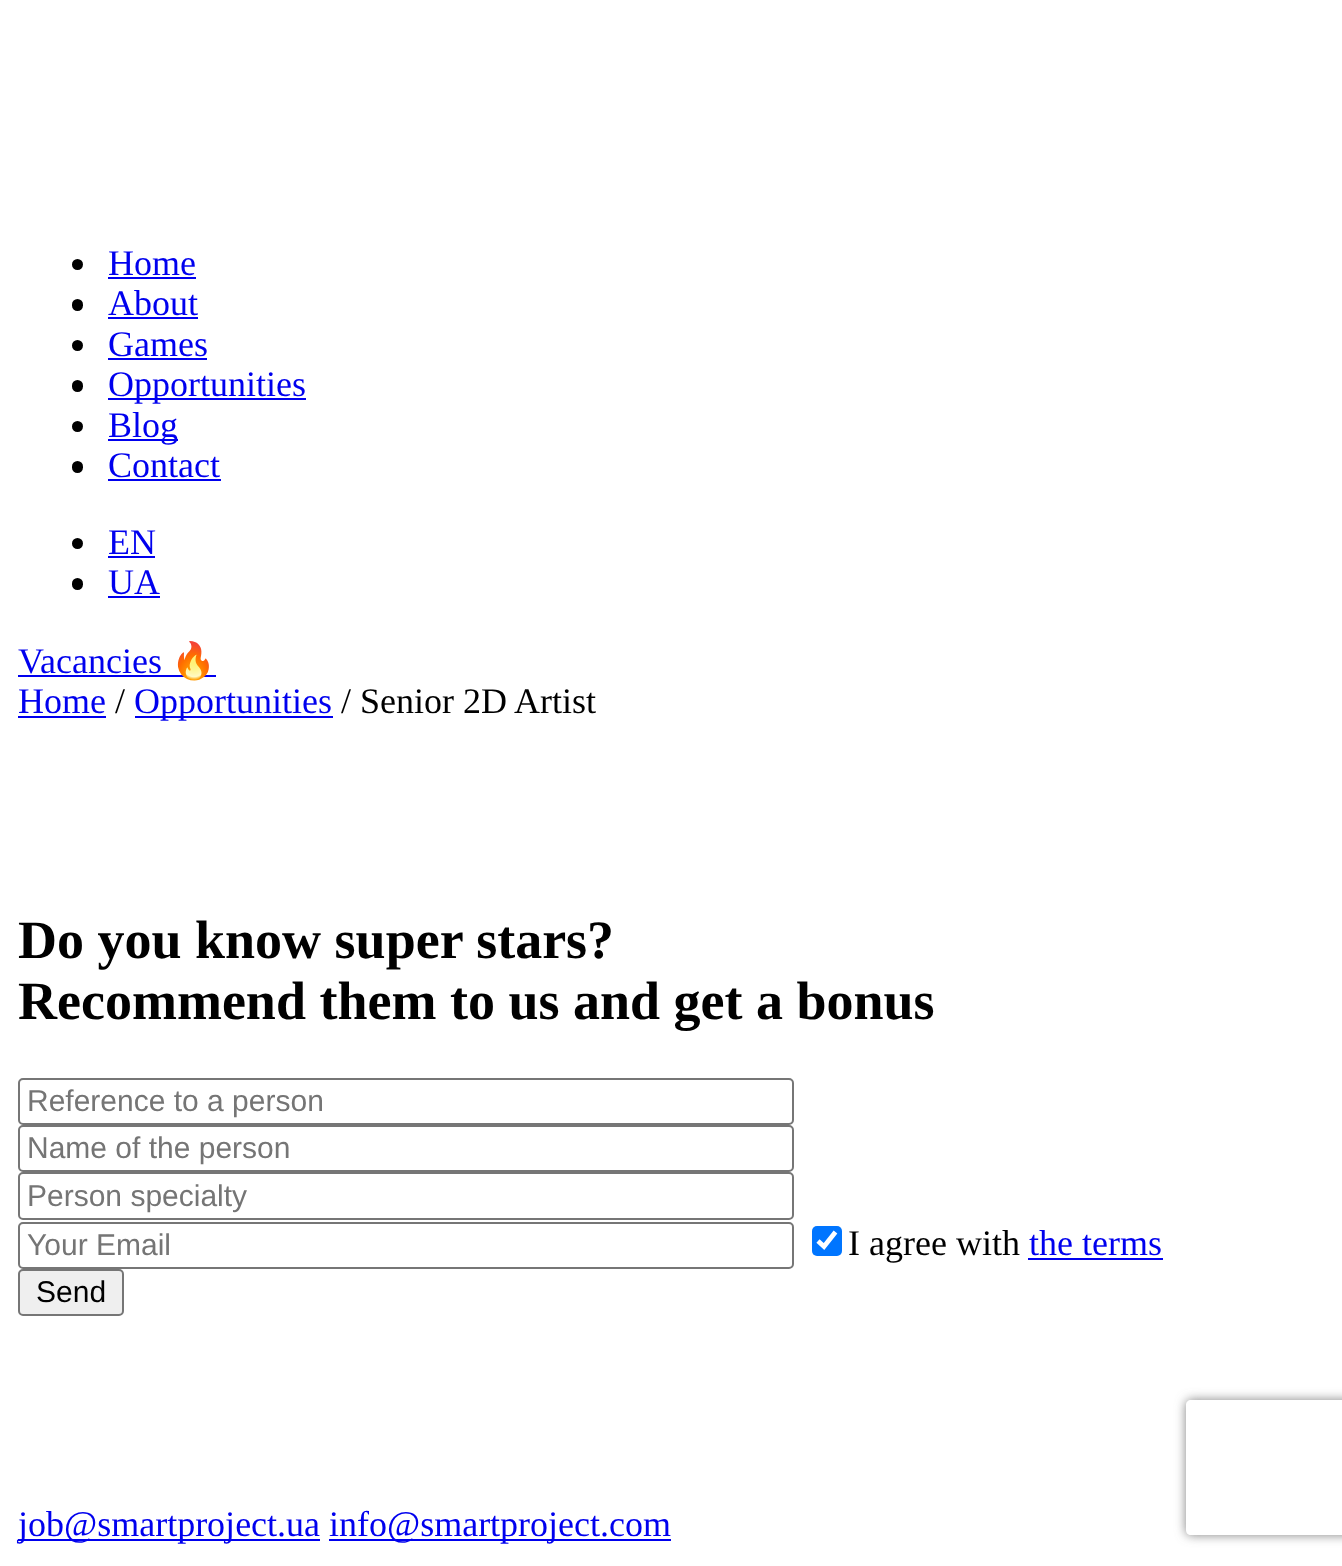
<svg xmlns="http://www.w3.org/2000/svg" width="1342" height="1566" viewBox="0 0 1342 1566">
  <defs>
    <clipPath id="clip1"><path d="M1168 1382H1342V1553H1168ZM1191 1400H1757C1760 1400 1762 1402 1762 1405V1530C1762 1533 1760 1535 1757 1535H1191C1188 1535 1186 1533 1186 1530V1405C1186 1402 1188 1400 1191 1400Z" clip-rule="evenodd"/></clipPath>
    <filter id="blur1" x="-50%" y="-200%" width="200%" height="500%"><feGaussianBlur stdDeviation="5.5"/></filter>
  </defs>
  <rect width="100%" height="100%" fill="#ffffff"/>
  <circle cx="77.5" cy="264.5" r="5.5" fill="#000000"/>
  <text x="108" y="275" font-family="Liberation Serif" font-size="36" fill="#0000ee">Home</text>
  <rect x="108" y="277" width="88" height="2" fill="#0000ee"/>
  <rect x="72" y="299" width="11" height="12" rx="5.5" fill="#000000"/>
  <text x="108" y="315" font-family="Liberation Serif" font-size="36" fill="#0000ee">About</text>
  <rect x="108" y="317" width="90" height="2" fill="#0000ee"/>
  <circle cx="77.5" cy="345.5" r="5.5" fill="#000000"/>
  <text x="108" y="356" font-family="Liberation Serif" font-size="36" fill="#0000ee">Games</text>
  <rect x="108" y="358" width="99" height="2" fill="#0000ee"/>
  <rect x="72" y="380" width="11" height="12" rx="5.5" fill="#000000"/>
  <rect x="108" y="398" width="198" height="2" fill="#0000ee"/>
  <text x="108" y="396" font-family="Liberation Serif" font-size="36" fill="#0000ee">Opportunities</text>
  <circle cx="77.5" cy="426.5" r="5.5" fill="#000000"/>
  <rect x="108" y="439" width="70" height="2" fill="#0000ee"/>
  <text x="108" y="437" font-family="Liberation Serif" font-size="36" fill="#0000ee">Blog</text>
  <rect x="72" y="461" width="11" height="12" rx="5.5" fill="#000000"/>
  <text x="108" y="477" font-family="Liberation Serif" font-size="36" fill="#0000ee">Contact</text>
  <rect x="108" y="479" width="113" height="2" fill="#0000ee"/>
  <circle cx="77.5" cy="543.5" r="5.5" fill="#000000"/>
  <text x="108" y="554" font-family="Liberation Serif" font-size="36" fill="#0000ee">EN</text>
  <rect x="108" y="556" width="47" height="2" fill="#0000ee"/>
  <rect x="72" y="578" width="11" height="12" rx="5.5" fill="#000000"/>
  <text x="108" y="594" font-family="Liberation Serif" font-size="36" fill="#0000ee">UA</text>
  <rect x="108" y="596" width="52" height="2" fill="#0000ee"/>
  <text x="18" y="673" font-family="Liberation Serif" font-size="36" fill="#0000ee">Vacancies</text>
  <rect x="18" y="675" width="198" height="2" fill="#0000ee"/>
  <text x="171" y="673" font-family="Noto Color Emoji" font-size="36" fill="#0000ee">🔥</text>
  <text x="18" y="713" font-family="Liberation Serif" font-size="36" fill="#0000ee">Home</text>
  <rect x="18" y="716" width="88" height="2" fill="#0000ee"/>
  <text x="115" y="713" font-family="Liberation Serif" font-size="36" fill="#000000">/</text>
  <rect x="135" y="716" width="198" height="2" fill="#0000ee"/>
  <text x="134" y="713" font-family="Liberation Serif" font-size="36" fill="#0000ee">Opportunities</text>
  <text x="341" y="713" font-family="Liberation Serif" font-size="36" fill="#000000">/ Senior 2D Artist</text>
  <text x="18" y="958" font-family="Liberation Serif" font-size="54" font-weight="bold" fill="#000000">Do you know super stars?</text>
  <text x="18" y="1019" font-family="Liberation Serif" font-size="54" font-weight="bold" fill="#000000">Recommend them to us and get a bonus</text>
  <rect x="19" y="1079" width="774" height="45" rx="4" fill="none" stroke="#767676" stroke-width="2"/>
  <text x="27" y="1111" font-family="Liberation Sans" font-size="30" fill="#757575">Reference to a person</text>
  <rect x="19" y="1126" width="774" height="45" rx="4" fill="none" stroke="#767676" stroke-width="2"/>
  <text x="27" y="1158" font-family="Liberation Sans" font-size="30" fill="#757575">Name of the person</text>
  <rect x="19" y="1173" width="774" height="46" rx="4" fill="none" stroke="#767676" stroke-width="2"/>
  <text x="27" y="1206" font-family="Liberation Sans" font-size="30" fill="#757575">Person specialty</text>
  <rect x="19" y="1223" width="774" height="45" rx="4" fill="none" stroke="#767676" stroke-width="2"/>
  <text x="27" y="1255" font-family="Liberation Sans" font-size="30" fill="#757575">Your Email</text>
  <rect x="812" y="1226" width="30" height="30" rx="5" fill="#0075ff"/>
  <path d="M818 1241L824 1246.5L835.5 1232" fill="none" stroke="#ffffff" stroke-width="4.7"/>
  <text x="848" y="1255" font-family="Liberation Serif" font-size="36" fill="#000000">I agree with</text>
  <text x="1029" y="1255" font-family="Liberation Serif" font-size="36" fill="#0000ee">the terms</text>
  <rect x="1028" y="1258" width="135" height="2" fill="#0000ee"/>
  <rect x="19" y="1270" width="104" height="45" rx="4" fill="#efefef" stroke="#767676" stroke-width="2"/>
  <text x="36" y="1302" font-family="Liberation Sans" font-size="30" fill="#000000">Send</text>
  <rect x="18" y="1539" width="302" height="2" fill="#0000ee"/>
  <text x="18" y="1536" font-family="Liberation Serif" font-size="36" fill="#0000ee">job@smartproject.ua</text>
  <rect x="329" y="1539" width="342" height="2" fill="#0000ee"/>
  <text x="329" y="1536" font-family="Liberation Serif" font-size="36" fill="#0000ee">info@smartproject.com</text>
  <g clip-path="url(#clip1)">
    <rect x="1186" y="1400" width="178" height="135" rx="5" fill="#808080" filter="url(#blur1)"/>
  </g>
</svg>
